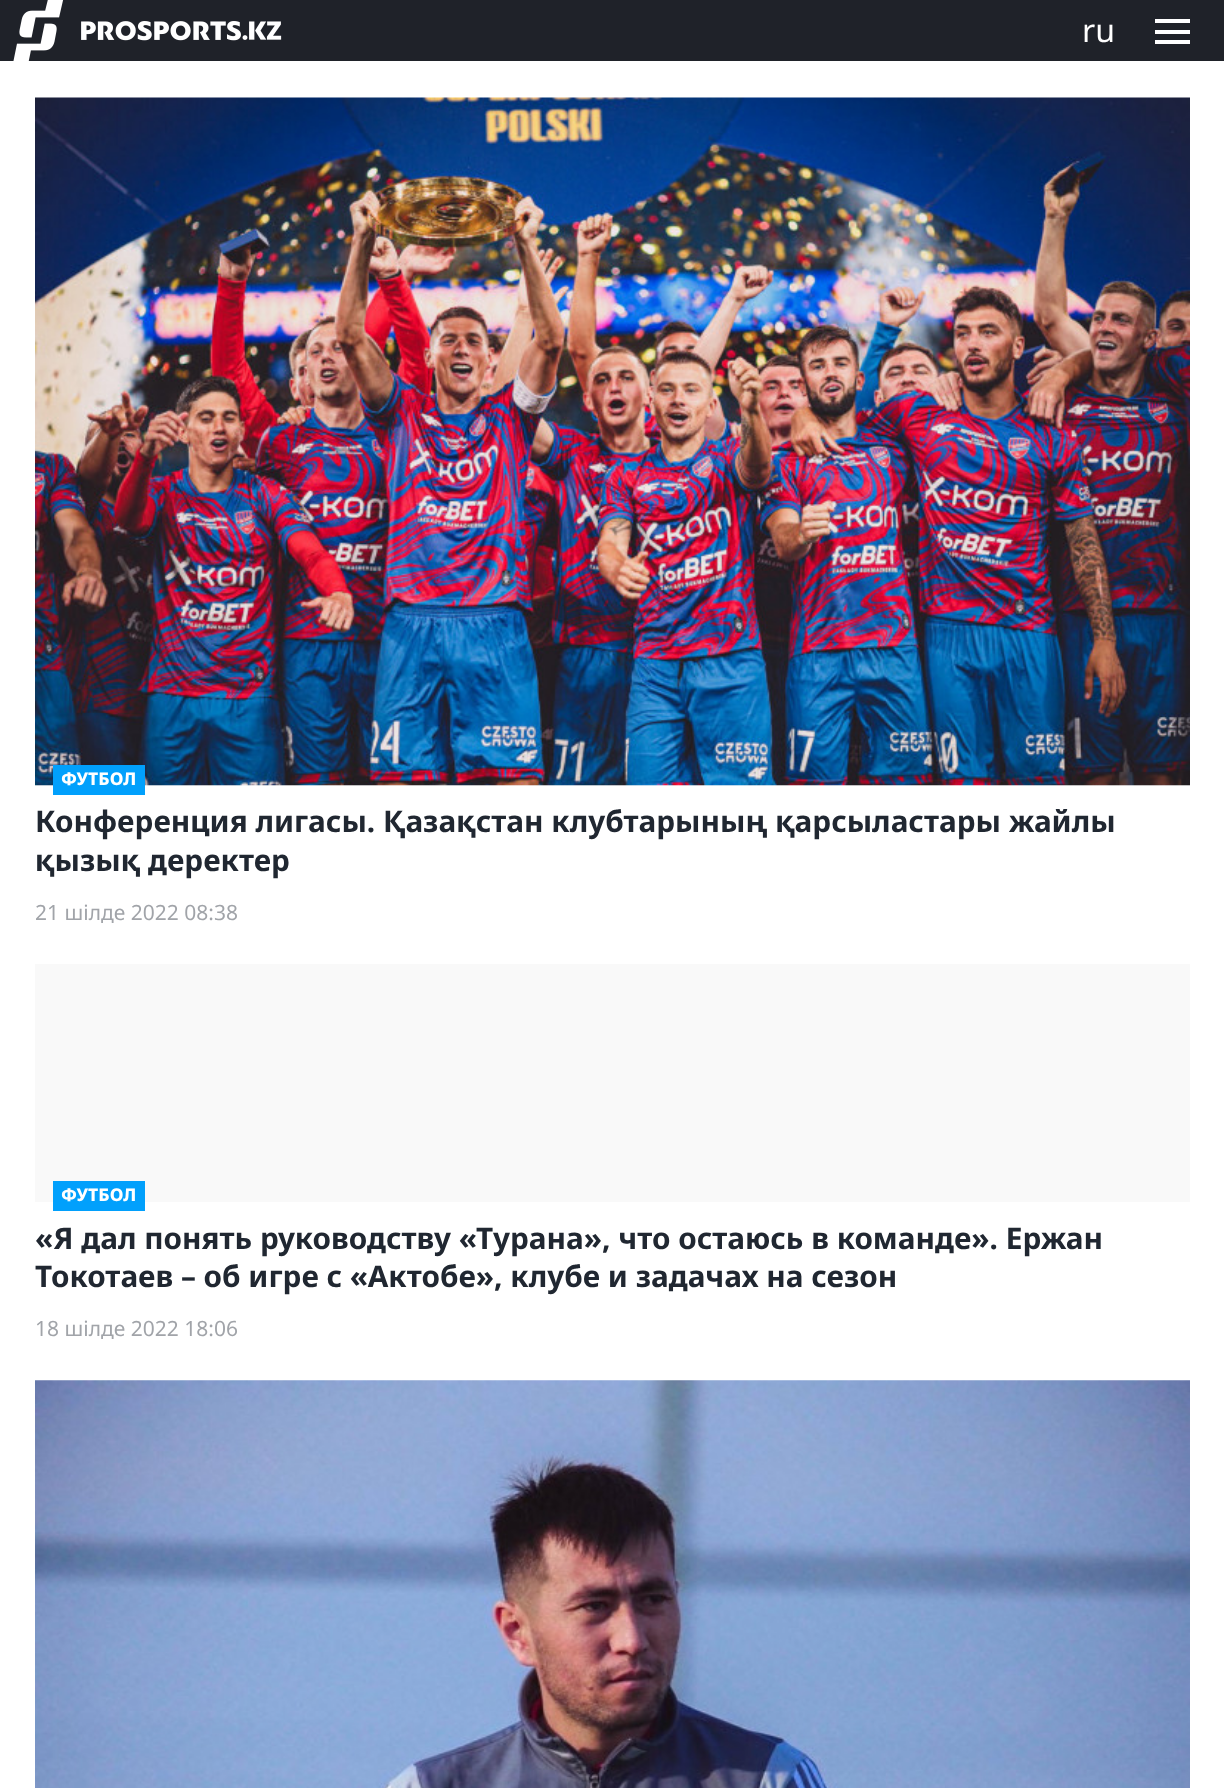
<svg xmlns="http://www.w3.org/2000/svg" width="1224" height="1788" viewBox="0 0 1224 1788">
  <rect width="100%" height="100%" fill="#ffffff"/>
  <rect x="0" y="0" width="1224" height="61" fill="#1f2229"/>
  <image x="13" y="0" width="269" height="61" href="img1.png"/>
  <text x="1082" y="42" font-family="Noto Sans" font-size="32" fill="#ffffff">ru</text>
  <rect x="1155" y="30" width="35" height="4" fill="#ffffff"/>
  <rect x="1155" y="19" width="35" height="4" fill="#ffffff"/>
  <rect x="1155" y="40" width="35" height="4" fill="#ffffff"/>
  <rect x="35" y="785" width="1155" height="1" fill="#f9f9f9"/>
  <image x="35" y="97" width="1155" height="689" href="img2.png"/>
  <rect x="53" y="765" width="92" height="30" fill="#01a0fc"/>
  <text x="61" y="785" font-family="Noto Sans" font-size="17.5" font-weight="800" fill="#ffffff">ФУТБОЛ</text>
  <text x="35" y="832" font-family="Noto Sans" font-size="29.75" font-weight="bold" fill="#202731">Конференция лигасы. Қазақстан клубтарының қарсыластары жайлы</text>
  <text x="35" y="871" font-family="Noto Sans" font-size="29.75" font-weight="bold" fill="#202731">қызық деректер</text>
  <text x="35" y="920" font-family="Noto Sans" font-size="21" fill="#a1a4a9">21 шілде 2022 08:38</text>
  <rect x="35" y="964" width="1155" height="238" fill="#f9f9f9"/>
  <rect x="53" y="1181" width="92" height="30" fill="#01a0fc"/>
  <text x="61" y="1201" font-family="Noto Sans" font-size="17.5" font-weight="800" fill="#ffffff">ФУТБОЛ</text>
  <text x="35" y="1249" font-family="Noto Sans" font-size="29.75" font-weight="bold" fill="#202731">«Я дал понять руководству «Турана», что остаюсь в команде». Ержан</text>
  <text x="35" y="1287" font-family="Noto Sans" font-size="29.75" font-weight="bold" fill="#202731">Токотаев – об игре с «Актобе», клубе и задачах на сезон</text>
  <text x="35" y="1336" font-family="Noto Sans" font-size="21" fill="#a1a4a9">18 шілде 2022 18:06</text>
  <image x="35" y="1380" width="1155" height="408" href="img3.png"/>
</svg>
